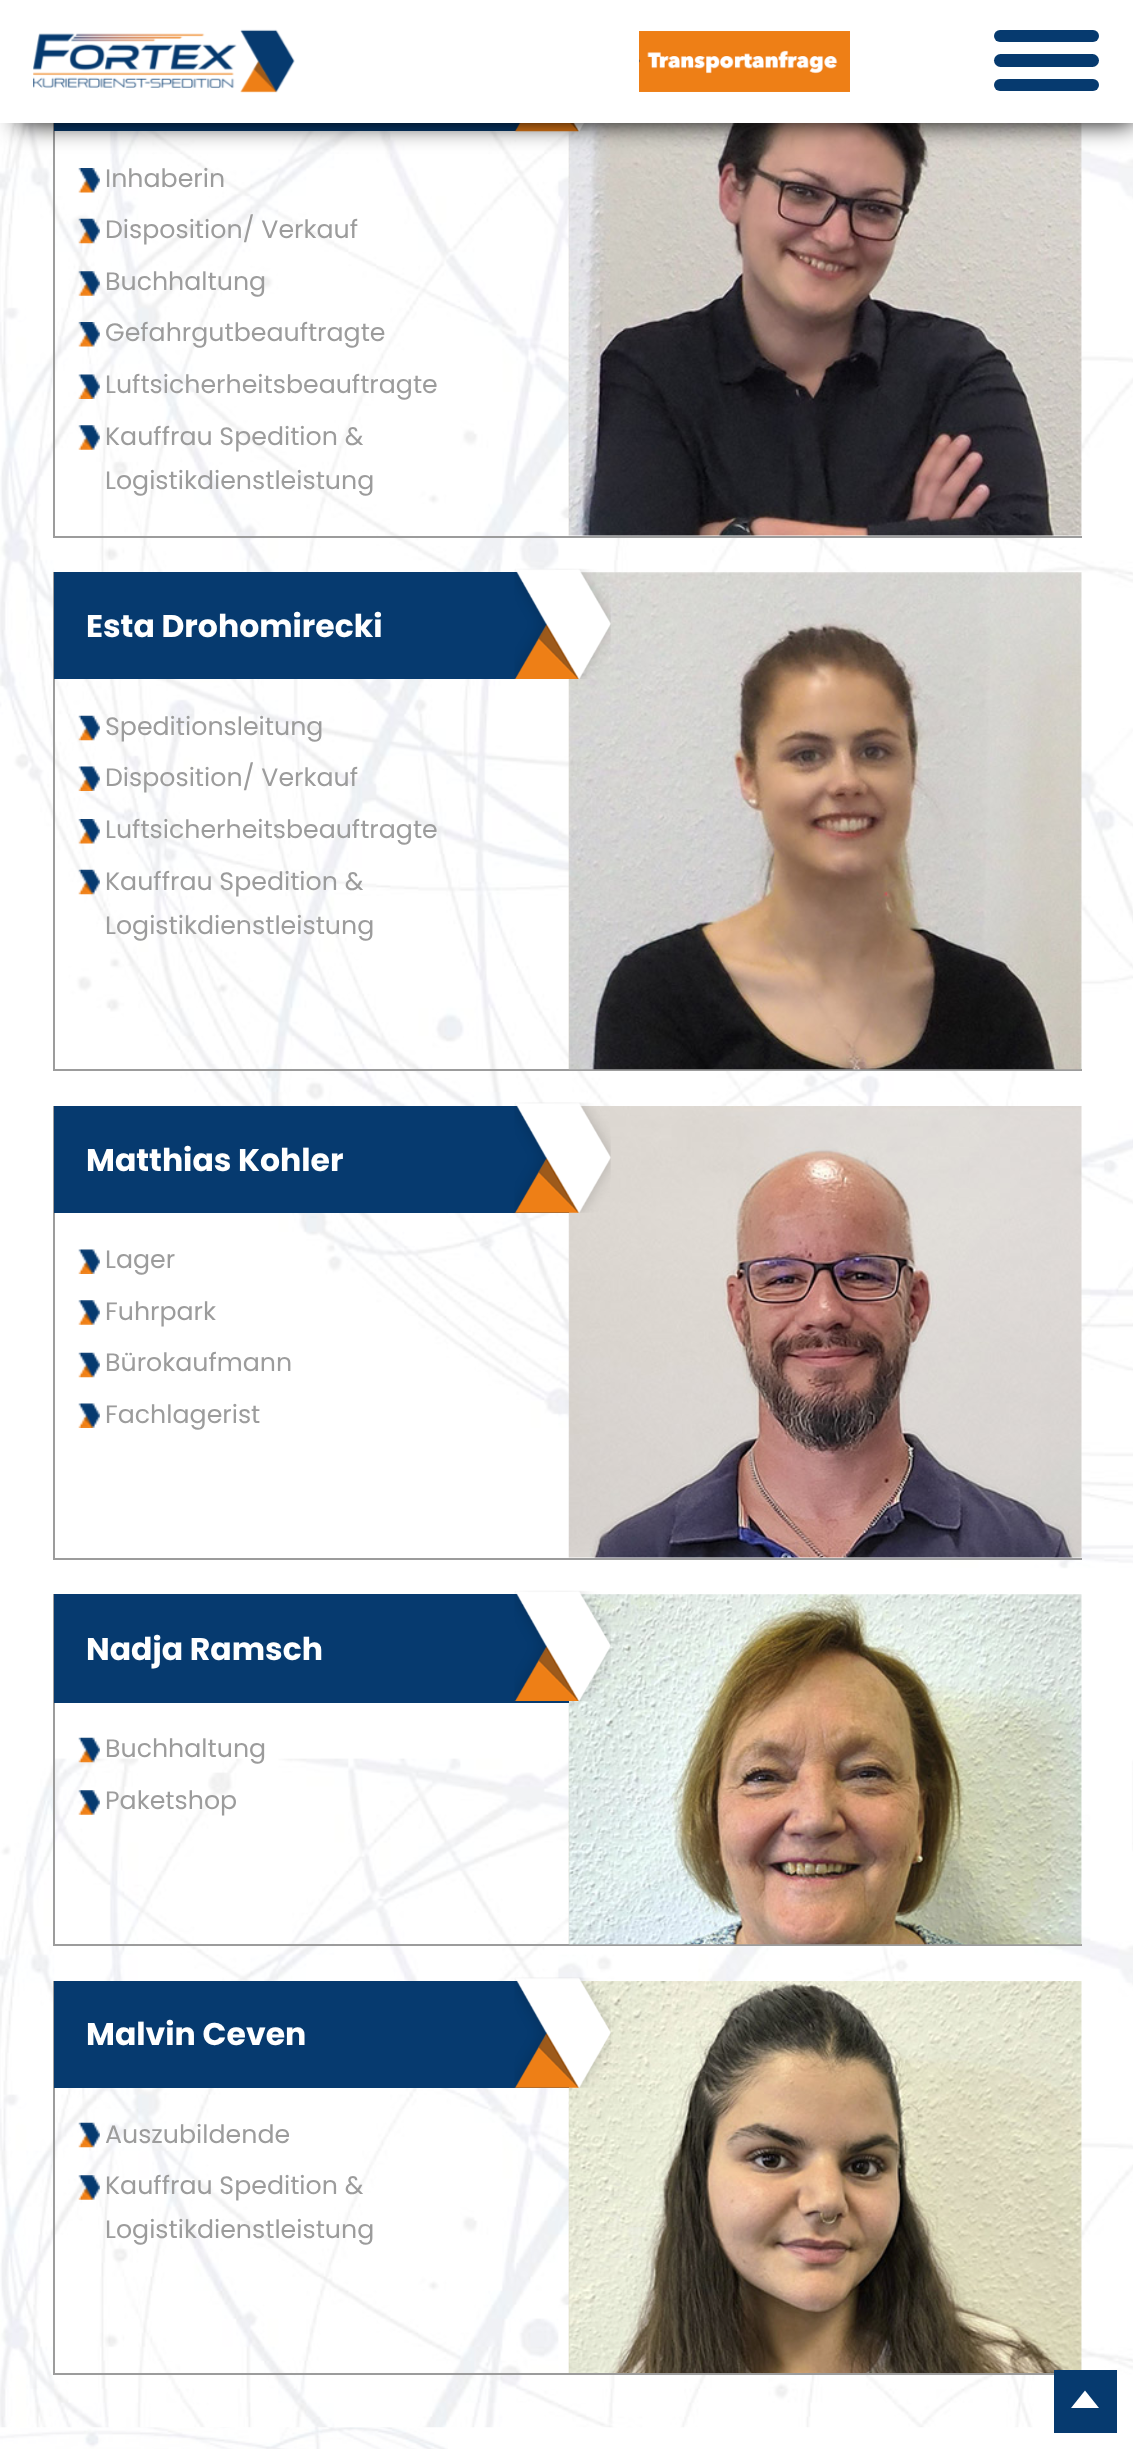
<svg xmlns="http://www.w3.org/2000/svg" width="1133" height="2449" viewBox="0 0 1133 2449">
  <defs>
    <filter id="blur1" x="-50%" y="-200%" width="200%" height="500%"><feGaussianBlur stdDeviation="13"/></filter>
  </defs>
  <rect width="100%" height="100%" fill="#ffffff"/>
  <image x="0" y="2427" width="448" height="22" href="img1.png"/>
  <image x="0" y="123" width="1133" height="2305" href="img4.png"/>
  <rect x="53" y="536" width="1029" height="2" fill="#9c9c9c"/>
  <rect x="53" y="123" width="2" height="414" fill="#9c9c9c"/>
  <rect x="54" y="123" width="467" height="8" fill="#063a6f"/>
  <image x="568" y="123" width="514" height="413" href="img12.png"/>
  <image x="514" y="123" width="80" height="9" href="img5.png"/>
  <rect x="18" y="18" width="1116" height="105" fill="#000000" filter="url(#blur1)"/>
  <rect x="0" y="0" width="1133" height="123" fill="#ffffff"/>
  <image x="33" y="29" width="262" height="64" href="img2.png"/>
  <image x="639" y="31" width="211" height="61" href="img3.png"/>
  <rect x="994" y="30" width="105" height="12" rx="6" fill="#063a6f"/>
  <rect x="994" y="54" width="105" height="13" rx="6.5" fill="#063a6f"/>
  <rect x="994" y="79" width="105" height="12" rx="6" fill="#063a6f"/>
  <image x="78" y="168" width="22" height="25" href="img6.png"/>
  <text x="105" y="187" font-family="Poppins" font-size="25.25" fill="#9c9c9c">Inhaberin</text>
  <image x="78" y="218" width="22" height="26" href="img7.png"/>
  <text x="105" y="238" font-family="Poppins" font-size="25.25" fill="#9c9c9c">Disposition/ Verkauf</text>
  <image x="78" y="271" width="22" height="25" href="img8.png"/>
  <text x="105" y="290" font-family="Poppins" font-size="25.25" fill="#9c9c9c">Buchhaltung</text>
  <image x="78" y="322" width="22" height="25" href="img9.png"/>
  <text x="105" y="341" font-family="Poppins" font-size="25.25" fill="#9c9c9c">Gefahrgutbeauftragte</text>
  <image x="78" y="374" width="22" height="25" href="img10.png"/>
  <text x="105" y="393" font-family="Poppins" font-size="25.25" fill="#9c9c9c">Luftsicherheitsbeauftragte</text>
  <image x="78" y="425" width="22" height="25" href="img11.png"/>
  <text x="105" y="445" font-family="Poppins" font-size="25.25" fill="#9c9c9c">Kauffrau Spedition &amp;</text>
  <text x="105" y="489" font-family="Poppins" font-size="25.25" fill="#9c9c9c">Logistikdienstleistung</text>
  <rect x="53" y="1069" width="1029" height="2" fill="#9c9c9c"/>
  <rect x="53" y="572" width="2" height="499" fill="#9c9c9c"/>
  <image x="568" y="572" width="514" height="498" href="img18.png"/>
  <rect x="54" y="572" width="515" height="107" fill="#063a6f"/>
  <text x="86" y="637" font-family="Poppins" font-size="31.5" font-weight="bold" fill="#ffffff">Esta Drohomirecki</text>
  <image x="514" y="568" width="97" height="111" href="img13.png"/>
  <image x="78" y="715" width="22" height="26" href="img14.png"/>
  <text x="105" y="735" font-family="Poppins" font-size="25.25" fill="#9c9c9c">Speditionsleitung</text>
  <image x="78" y="766" width="22" height="25" href="img15.png"/>
  <text x="105" y="786" font-family="Poppins" font-size="25.25" fill="#9c9c9c">Disposition/ Verkauf</text>
  <image x="78" y="819" width="22" height="25" href="img16.png"/>
  <text x="105" y="838" font-family="Poppins" font-size="25.25" fill="#9c9c9c">Luftsicherheitsbeauftragte</text>
  <image x="78" y="869" width="22" height="26" href="img17.png"/>
  <text x="105" y="890" font-family="Poppins" font-size="25.25" fill="#9c9c9c">Kauffrau Spedition &amp;</text>
  <text x="105" y="934" font-family="Poppins" font-size="25.25" fill="#9c9c9c">Logistikdienstleistung</text>
  <rect x="53" y="1558" width="1029" height="2" fill="#9c9c9c"/>
  <rect x="53" y="1106" width="2" height="453" fill="#9c9c9c"/>
  <image x="568" y="1106" width="514" height="452" href="img24.png"/>
  <rect x="54" y="1106" width="515" height="107" fill="#063a6f"/>
  <text x="86" y="1171" font-family="Poppins" font-size="31.5" font-weight="bold" fill="#ffffff">Matthias Kohler</text>
  <image x="514" y="1102" width="97" height="111" href="img19.png"/>
  <image x="78" y="1249" width="22" height="25" href="img20.png"/>
  <text x="105" y="1268" font-family="Poppins" font-size="25.25" fill="#9c9c9c">Lager</text>
  <image x="78" y="1300" width="22" height="25" href="img21.png"/>
  <text x="105" y="1320" font-family="Poppins" font-size="25.25" fill="#9c9c9c">Fuhrpark</text>
  <image x="78" y="1352" width="22" height="26" href="img22.png"/>
  <text x="105" y="1371" font-family="Poppins" font-size="25.25" fill="#9c9c9c">Bürokaufmann</text>
  <image x="78" y="1403" width="22" height="25" href="img23.png"/>
  <text x="105" y="1423" font-family="Poppins" font-size="25.25" fill="#9c9c9c">Fachlagerist</text>
  <rect x="53" y="1944" width="1029" height="2" fill="#9c9c9c"/>
  <rect x="53" y="1594" width="2" height="352" fill="#9c9c9c"/>
  <image x="568" y="1594" width="514" height="351" href="img28.png"/>
  <rect x="54" y="1594" width="515" height="109" fill="#063a6f"/>
  <text x="86" y="1660" font-family="Poppins" font-size="31.5" font-weight="bold" fill="#ffffff">Nadja Ramsch</text>
  <image x="514" y="1590" width="97" height="111" href="img25.png"/>
  <image x="78" y="1737" width="22" height="26" href="img26.png"/>
  <text x="105" y="1757" font-family="Poppins" font-size="25.25" fill="#9c9c9c">Buchhaltung</text>
  <image x="78" y="1790" width="22" height="25" href="img27.png"/>
  <text x="105" y="1809" font-family="Poppins" font-size="25.25" fill="#9c9c9c">Paketshop</text>
  <rect x="53" y="2373" width="1001" height="2" fill="#9c9c9c"/>
  <rect x="53" y="1981" width="2" height="394" fill="#9c9c9c"/>
  <image x="568" y="1981" width="514" height="392" href="img32.png"/>
  <rect x="54" y="1981" width="515" height="107" fill="#063a6f"/>
  <text x="86" y="2045" font-family="Poppins" font-size="31.5" font-weight="bold" fill="#ffffff">Malvin Ceven</text>
  <image x="514" y="1977" width="97" height="111" href="img29.png"/>
  <image x="78" y="2122" width="22" height="26" href="img30.png"/>
  <text x="105" y="2143" font-family="Poppins" font-size="25.25" fill="#9c9c9c">Auszubildende</text>
  <image x="78" y="2175" width="22" height="25" href="img31.png"/>
  <text x="105" y="2194" font-family="Poppins" font-size="25.25" fill="#9c9c9c">Kauffrau Spedition &amp;</text>
  <text x="105" y="2238" font-family="Poppins" font-size="25.25" fill="#9c9c9c">Logistikdienstleistung</text>
  <rect x="1054" y="2370" width="63" height="63" fill="#063a6f"/>
  <path d="M1099 2408H1071L1085 2390.5Z" fill="#ffffff"/>
</svg>
